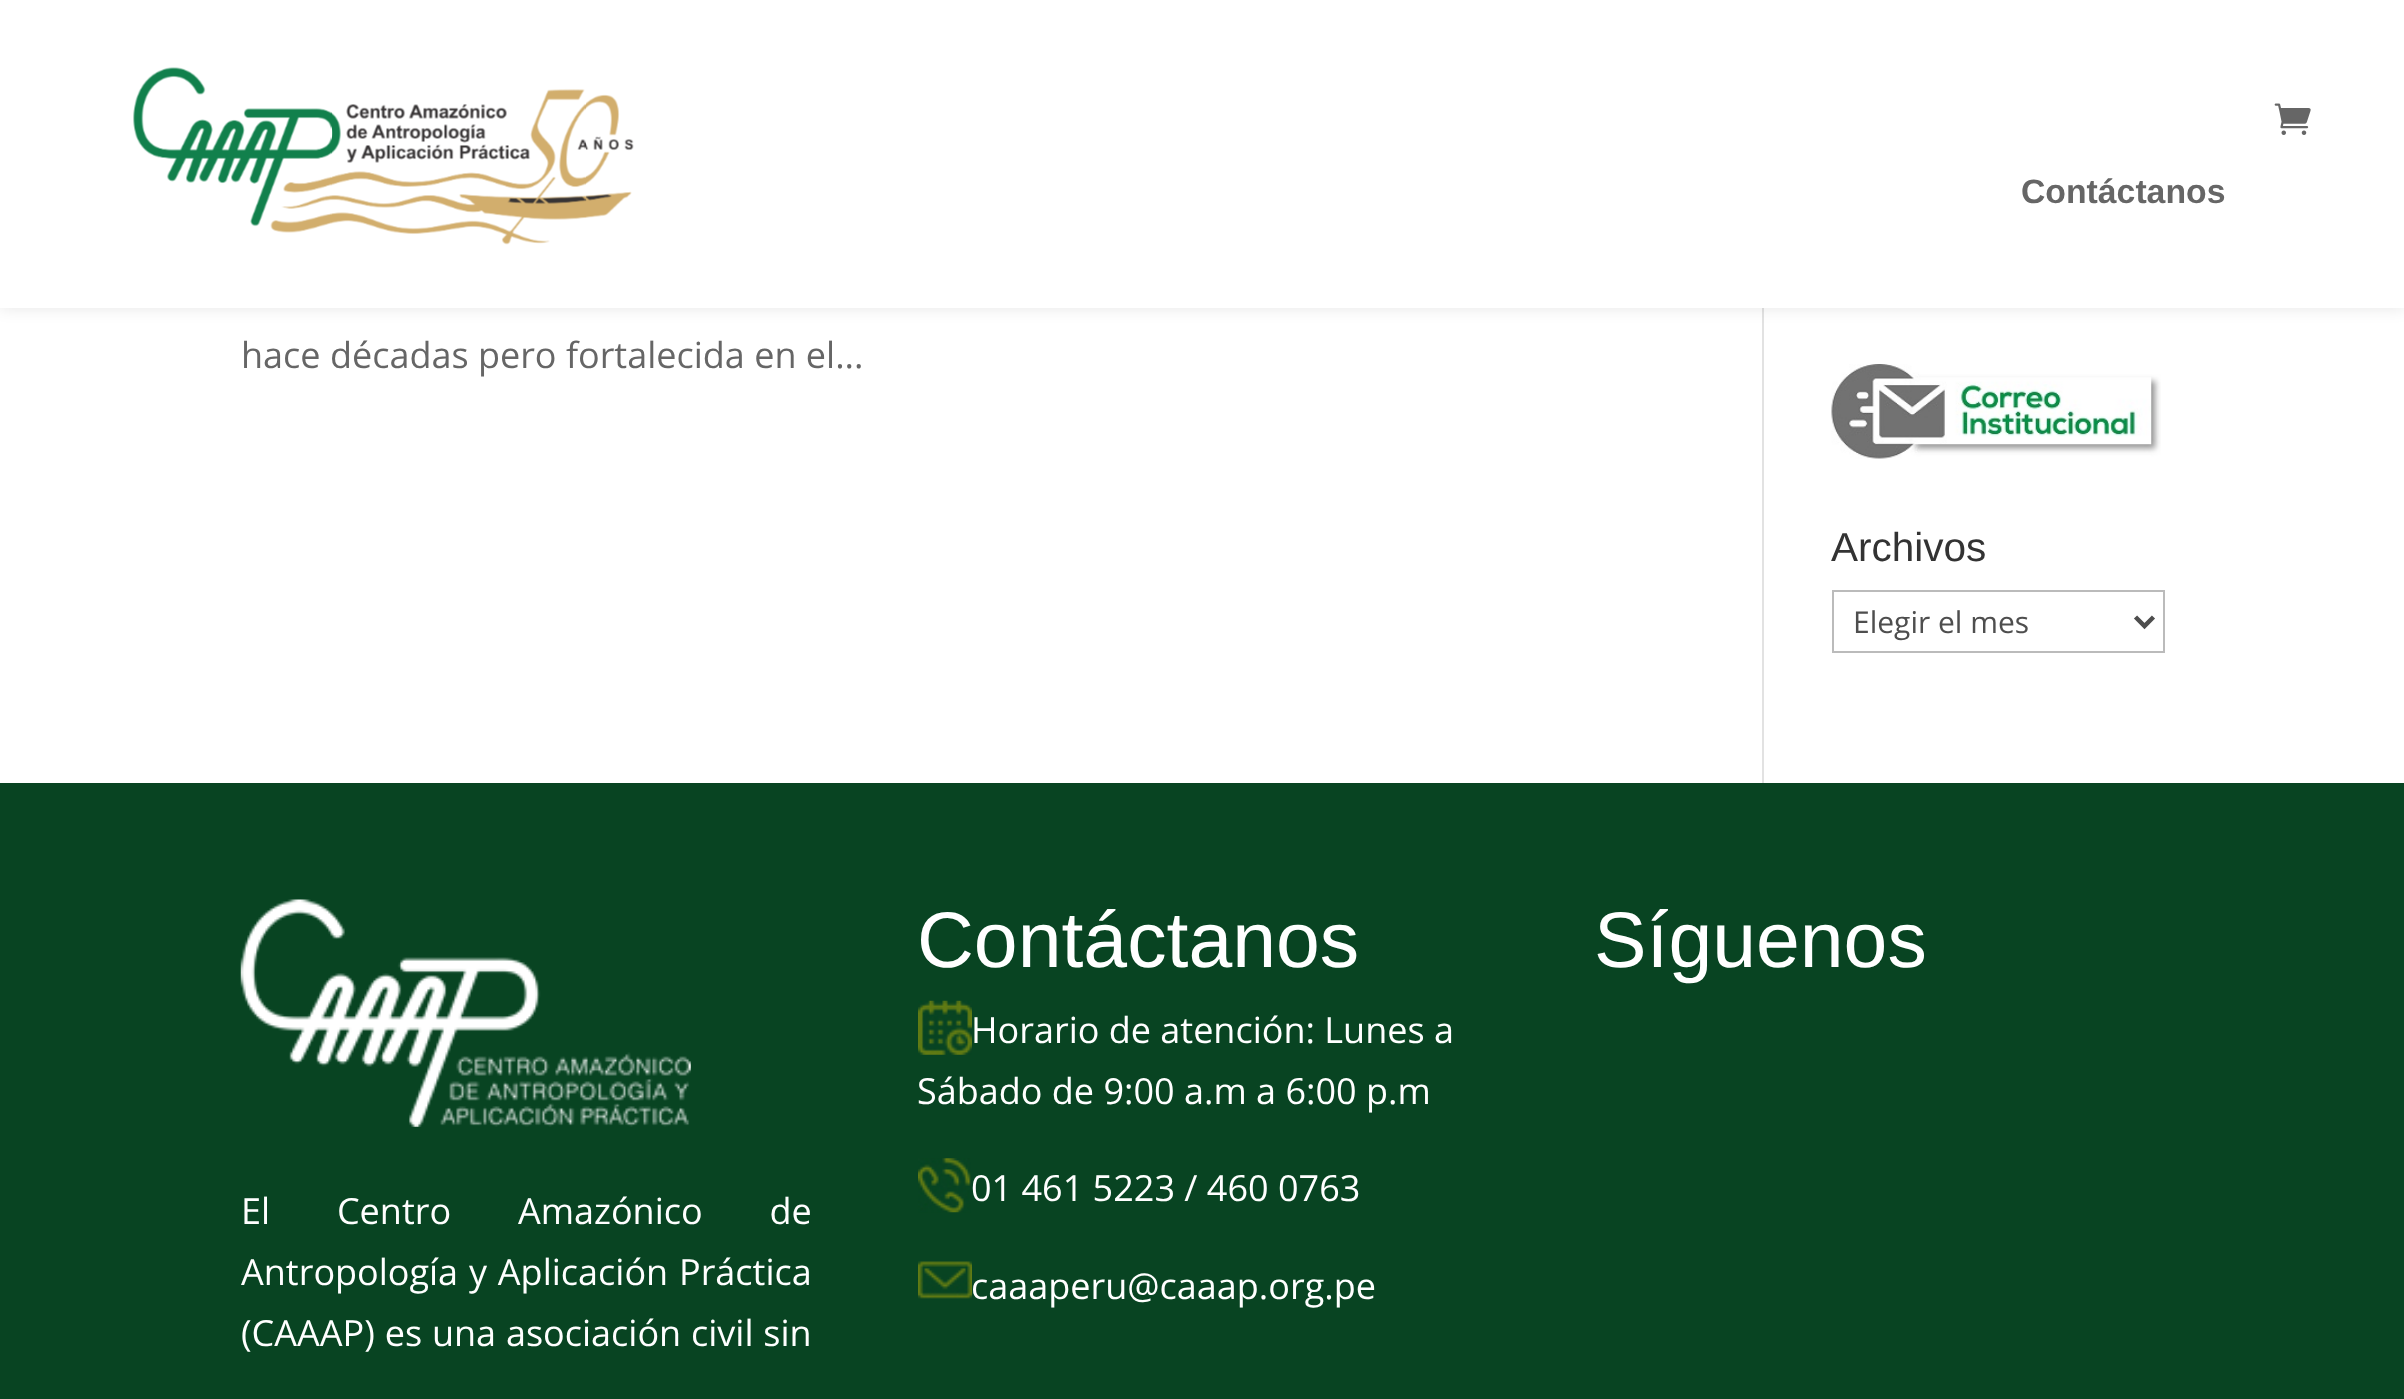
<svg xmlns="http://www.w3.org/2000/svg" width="2404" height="1399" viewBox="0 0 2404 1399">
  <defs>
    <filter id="blur1" x="-50%" y="-200%" width="200%" height="500%"><feGaussianBlur stdDeviation="8"/></filter>
  </defs>
  <rect width="100%" height="100%" fill="#ffffff"/>
  <rect x="1762" y="308" width="2" height="475" fill="#e2e2e2"/>
  <rect x="0" y="0" width="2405" height="308" fill="#000000" fill-opacity="0.1" filter="url(#blur1)"/>
  <rect x="0" y="0" width="2404" height="308" fill="#ffffff"/>
  <image x="133" y="67" width="501" height="178" href="img1.png"/>
  <image x="2274" y="103" width="37" height="32" href="img2.png"/>
  <text x="2021" y="203" font-family="Liberation Sans" font-size="33.75" font-weight="bold" fill="#666666">Contáctanos</text>
  <text x="241" y="368" font-family="Open Sans" font-size="36" fill="#666666">hace décadas pero fortalecida en el...</text>
  <image x="1831" y="364" width="330" height="95" href="img3.png"/>
  <text x="1831" y="561" font-family="Liberation Sans" font-size="40.5" fill="#333333">Archivos</text>
  <rect x="1833" y="591" width="331" height="61" fill="none" stroke="#bbbbbb" stroke-width="2"/>
  <path d="M2135.5 617L2144.5 626L2153.5 617" fill="none" stroke="#4e4e4e" stroke-width="4.5"/>
  <text x="1853" y="633" font-family="Open Sans" font-size="30" fill="#4e4e4e">Elegir el mes</text>
  <rect x="0" y="783" width="2404" height="616" fill="#084422"/>
  <text x="917" y="967" font-family="Liberation Sans" font-size="78.75" fill="#ffffff">Contáctanos</text>
  <image x="918" y="1000" width="54" height="55" href="img4.png"/>
  <text x="971" y="1043" font-family="Open Sans" font-size="36" fill="#ffffff">Horario de atención: Lunes a</text>
  <text x="917" y="1104" font-family="Open Sans" font-size="36" fill="#ffffff">Sábado de 9:00 a.m a 6:00 p.m</text>
  <image x="918" y="1158" width="53" height="55" href="img5.png"/>
  <text x="971" y="1201" font-family="Open Sans" font-size="36" fill="#ffffff">01 461 5223 / 460 0763</text>
  <image x="918" y="1261" width="54" height="38" href="img6.png"/>
  <text x="971" y="1299" font-family="Open Sans" font-size="36" fill="#ffffff">caaaperu@caaap.org.pe</text>
  <text x="1594" y="967" font-family="Liberation Sans" font-size="78.75" fill="#ffffff">Síguenos</text>
  <image x="240" y="899" width="451" height="228" href="img7.png"/>
  <text x="241" y="1224" word-spacing="57.5" font-family="Open Sans" font-size="36" fill="#ffffff">El Centro Amazónico de</text>
  <text x="241" y="1285" word-spacing="1.5" font-family="Open Sans" font-size="36" fill="#ffffff">Antropología y Aplicación Práctica</text>
  <text x="241" y="1346" word-spacing="0.5" font-family="Open Sans" font-size="36" fill="#ffffff">(CAAAP) es una asociación civil sin</text>
</svg>
